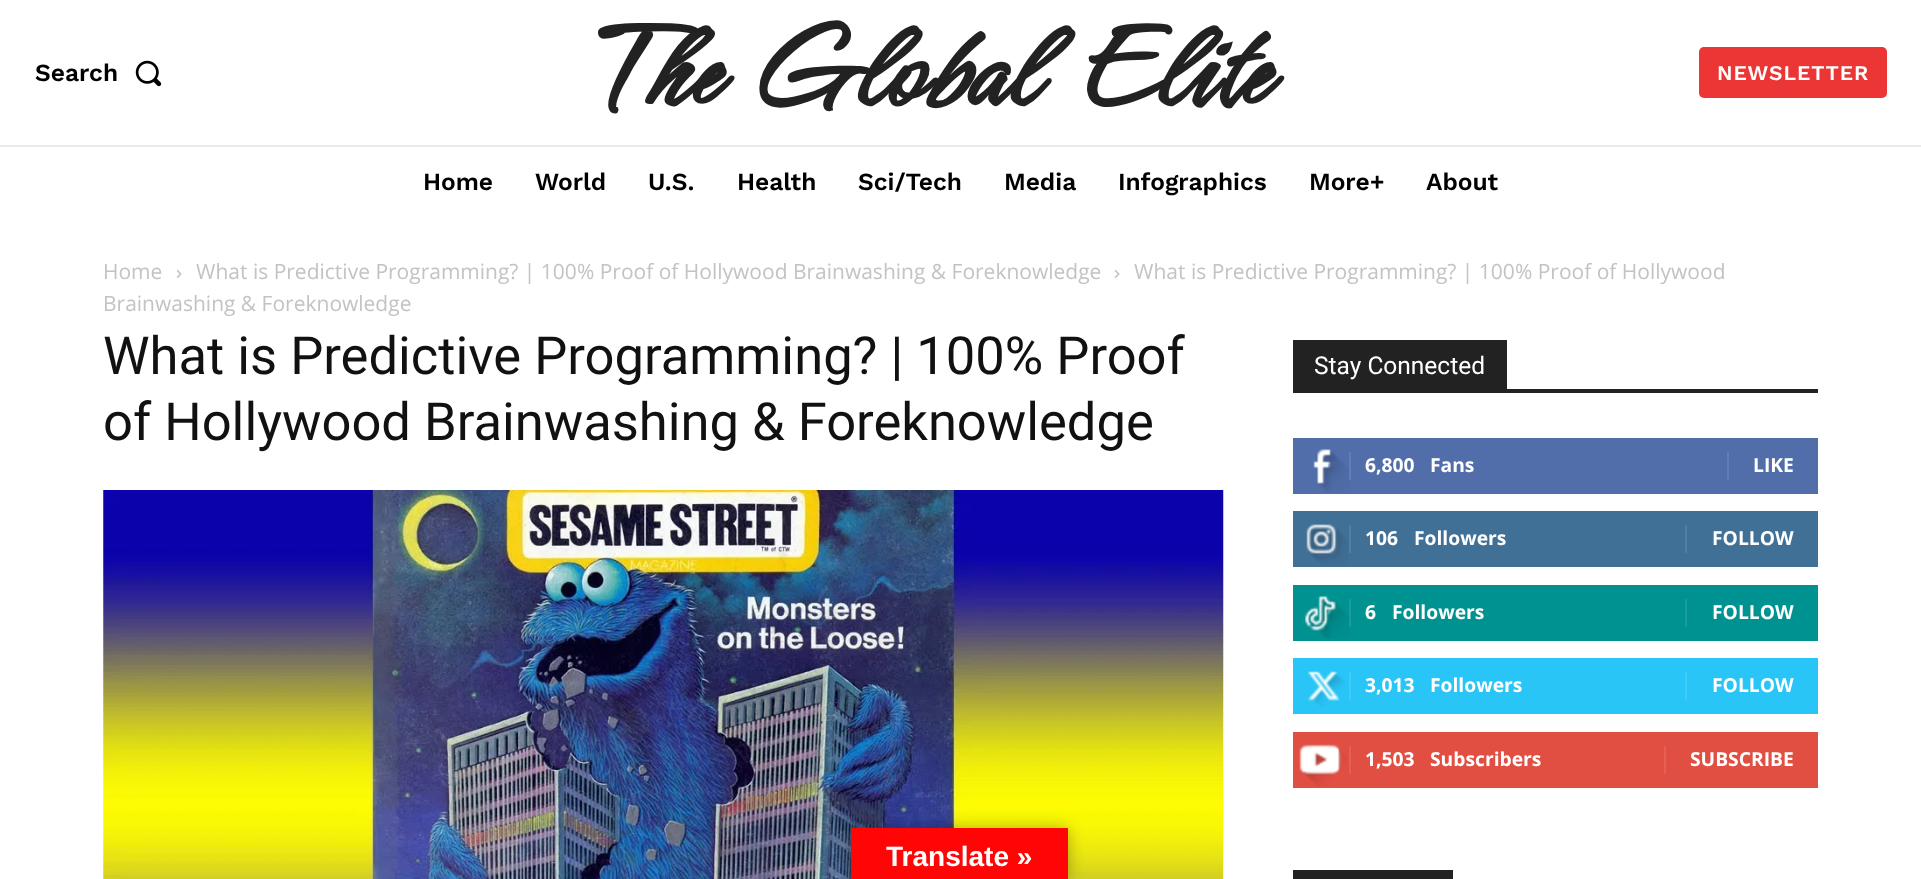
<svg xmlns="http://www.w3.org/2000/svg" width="1921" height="879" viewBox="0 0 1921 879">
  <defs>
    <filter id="blur1" x="-50%" y="-200%" width="200%" height="500%"><feGaussianBlur stdDeviation="8"/></filter>
  </defs>
  <rect width="100%" height="100%" fill="#ffffff"/>
  <text x="35" y="81" font-family="Work Sans" font-size="24.5" font-weight="600" fill="#000000">Search</text>
  <image x="135" y="60" width="27" height="27" href="img1.png"/>
  <text x="596" y="105" font-family="Hurricane" font-size="131.25" font-weight="bold" fill="#222222">The Global Elite</text>
  <rect x="1699" y="47" width="188" height="51" rx="5" fill="#ec3535"/>
  <text x="1717" y="80" font-family="Work Sans" font-size="21" font-weight="600" letter-spacing="0.9" fill="#ffffff">NEWSLETTER</text>
  <rect x="0" y="145" width="1921" height="2" fill="#eaeaea"/>
  <text x="423" y="190" font-family="Work Sans" font-size="24.5" font-weight="600" fill="#000000">Home</text>
  <text x="535" y="190" font-family="Work Sans" font-size="24.5" font-weight="600" fill="#000000">World</text>
  <text x="648" y="190" font-family="Work Sans" font-size="24.5" font-weight="600" fill="#000000">U.S.</text>
  <text x="737" y="190" font-family="Work Sans" font-size="24.5" font-weight="600" fill="#000000">Health</text>
  <text x="858" y="190" font-family="Work Sans" font-size="24.5" font-weight="600" fill="#000000">Sci/Tech</text>
  <text x="1004" y="190" font-family="Work Sans" font-size="24.5" font-weight="600" fill="#000000">Media</text>
  <text x="1118" y="190" font-family="Work Sans" font-size="24.5" font-weight="600" fill="#000000">Infographics</text>
  <text x="1309" y="190" font-family="Work Sans" font-size="24.5" font-weight="600" fill="#000000">More+</text>
  <text x="1426" y="190" font-family="Work Sans" font-size="24.5" font-weight="600" fill="#000000">About</text>
  <text x="103" y="279" font-family="Open Sans" font-size="21" fill="#c3c3c3">Home</text>
  <image x="176" y="270" width="6" height="8" href="img2.png"/>
  <text x="196" y="279" font-family="Open Sans" font-size="21" fill="#c3c3c3">What is Predictive Programming? | 100% Proof of Hollywood Brainwashing &amp; Foreknowledge</text>
  <image x="1114" y="270" width="6" height="8" href="img2.png"/>
  <text x="1134" y="279" font-family="Open Sans" font-size="21" fill="#c3c3c3">What is Predictive Programming? | 100% Proof of Hollywood</text>
  <text x="103" y="311" font-family="Open Sans" font-size="21" fill="#c3c3c3">Brainwashing &amp; Foreknowledge</text>
  <text x="103" y="374" font-family="Roboto" font-size="52.5" fill="#111111">What is Predictive Programming? | 100% Proof</text>
  <text x="103" y="440" font-family="Roboto" font-size="52.5" fill="#111111">of Hollywood Brainwashing &amp; Foreknowledge</text>
  <image x="103" y="490" width="1121" height="389" href="img3.png"/>
  <rect x="1293" y="389" width="525" height="4" fill="#222222"/>
  <rect x="1293" y="340" width="214" height="49" fill="#222222"/>
  <text x="1314" y="374" font-family="Roboto" font-size="24.5" fill="#ffffff">Stay Connected</text>
  <rect x="1293" y="438" width="525" height="56" fill="#516eab"/>
  <image x="1313" y="448" width="36" height="45" href="img4.png"/>
  <rect x="1349" y="452" width="2" height="28" fill="#627db3"/>
  <text x="1365" y="472" font-family="Open Sans" font-size="19.25" font-weight="bold" fill="#ffffff">6,800</text>
  <text x="1430" y="472" font-family="Open Sans" font-size="19.25" font-weight="bold" fill="#ffffff">Fans</text>
  <rect x="1727" y="452" width="2" height="28" fill="#627db3"/>
  <text x="1753" y="472" font-family="Open Sans" font-size="19.25" font-weight="bold" fill="#ffffff">LIKE</text>
  <rect x="1293" y="511" width="525" height="56" fill="#417096"/>
  <image x="1306" y="524" width="42" height="42" href="img5.png"/>
  <rect x="1349" y="525" width="2" height="28" fill="#547ea1"/>
  <text x="1365" y="545" font-family="Open Sans" font-size="19.25" font-weight="bold" fill="#ffffff">106</text>
  <text x="1414" y="545" font-family="Open Sans" font-size="19.25" font-weight="bold" fill="#ffffff">Followers</text>
  <rect x="1685" y="525" width="2" height="28" fill="#547ea1"/>
  <text x="1712" y="545" font-family="Open Sans" font-size="19.25" font-weight="bold" fill="#ffffff">FOLLOW</text>
  <rect x="1293" y="585" width="525" height="56" fill="#009191"/>
  <image x="1304" y="595" width="45" height="44" href="img6.png"/>
  <rect x="1349" y="599" width="2" height="28" fill="#1a9c9c"/>
  <text x="1365" y="619" font-family="Open Sans" font-size="19.25" font-weight="bold" fill="#ffffff">6</text>
  <text x="1392" y="619" font-family="Open Sans" font-size="19.25" font-weight="bold" fill="#ffffff">Followers</text>
  <rect x="1685" y="599" width="2" height="28" fill="#1a9c9c"/>
  <text x="1712" y="619" font-family="Open Sans" font-size="19.25" font-weight="bold" fill="#ffffff">FOLLOW</text>
  <rect x="1293" y="658" width="525" height="56" fill="#29c5f6"/>
  <image x="1307" y="671" width="38" height="36" href="img7.png"/>
  <rect x="1349" y="672" width="2" height="28" fill="#3ecbf7"/>
  <text x="1365" y="692" font-family="Open Sans" font-size="19.25" font-weight="bold" fill="#ffffff">3,013</text>
  <text x="1430" y="692" font-family="Open Sans" font-size="19.25" font-weight="bold" fill="#ffffff">Followers</text>
  <rect x="1685" y="672" width="2" height="28" fill="#3ecbf7"/>
  <text x="1712" y="692" font-family="Open Sans" font-size="19.25" font-weight="bold" fill="#ffffff">FOLLOW</text>
  <rect x="1293" y="732" width="525" height="56" fill="#e14e42"/>
  <image x="1299" y="744" width="48" height="42" href="img8.png"/>
  <rect x="1349" y="746" width="2" height="28" fill="#e46055"/>
  <text x="1365" y="766" font-family="Open Sans" font-size="19.25" font-weight="bold" fill="#ffffff">1,503</text>
  <text x="1430" y="766" font-family="Open Sans" font-size="19.25" font-weight="bold" fill="#ffffff">Subscribers</text>
  <rect x="1664" y="746" width="2" height="28" fill="#e46055"/>
  <text x="1690" y="766" font-family="Open Sans" font-size="19.25" font-weight="bold" fill="#ffffff">SUBSCRIBE</text>
  <rect x="1293" y="870" width="160" height="9" fill="#222222"/>
  <rect x="851" y="828" width="217" height="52" fill="#000000" fill-opacity="0.3" filter="url(#blur1)"/>
  <rect x="851" y="828" width="217" height="51" fill="#ff0505"/>
  <text x="886" y="866" font-family="Liberation Sans" font-size="28" font-weight="bold" fill="#ffffff">Translate »</text>
</svg>
